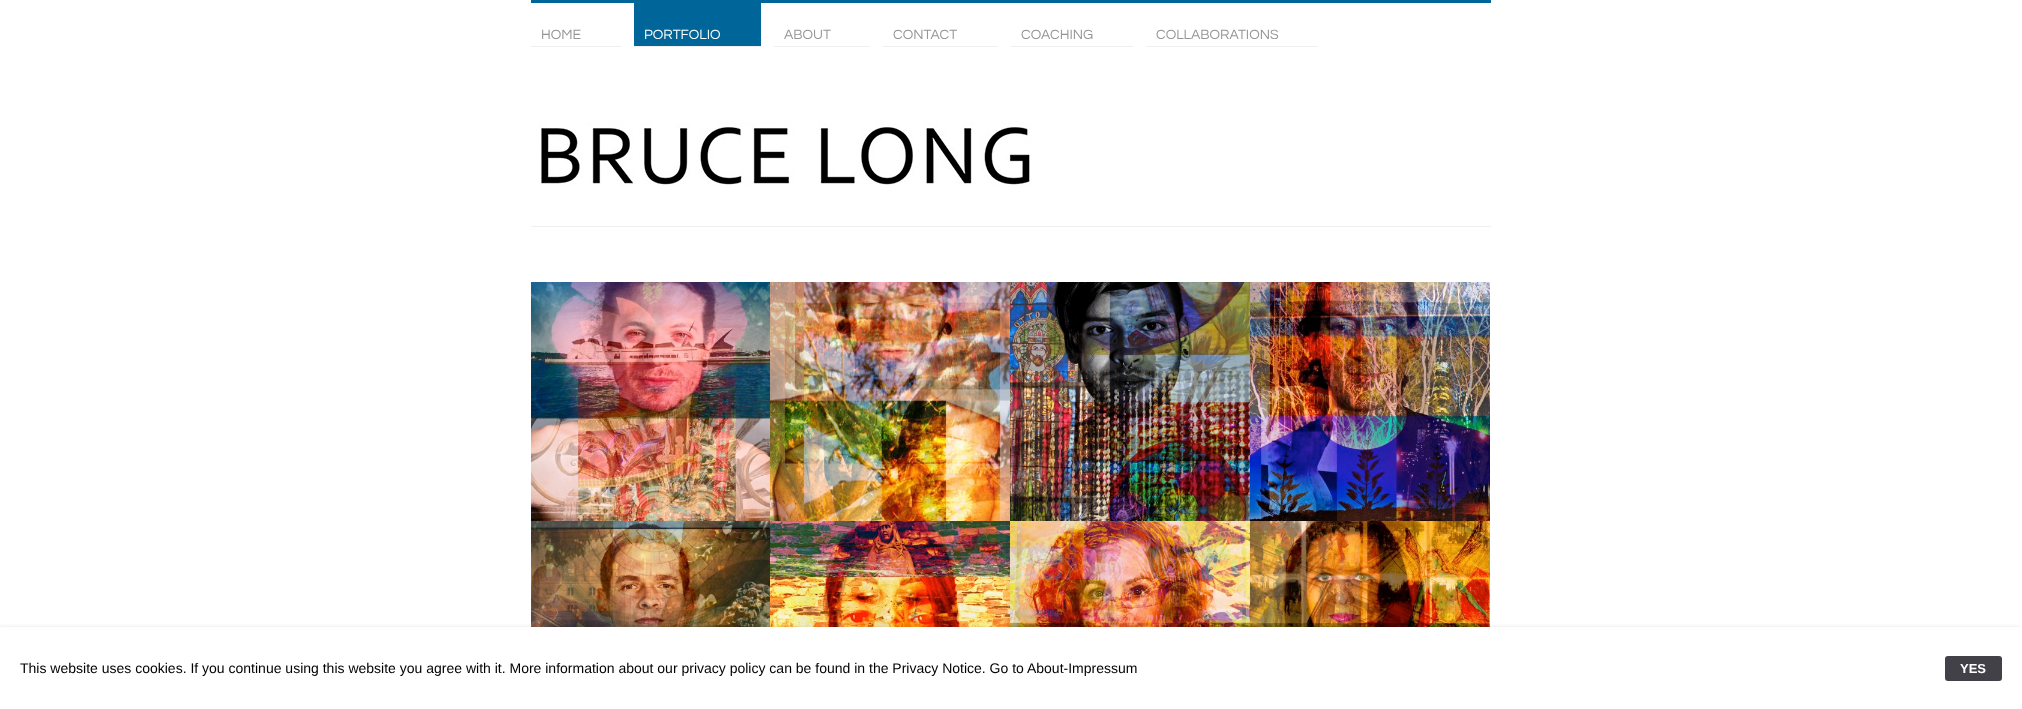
<svg xmlns="http://www.w3.org/2000/svg" width="2022" height="709" viewBox="0 0 2022 709">
  <defs>
    <filter id="blur1" x="-50%" y="-200%" width="200%" height="500%"><feGaussianBlur stdDeviation="2"/></filter>
  </defs>
  <rect width="100%" height="100%" fill="#ffffff"/>
  <rect x="531" y="226" width="960" height="1" fill="#f0f0f0"/>
  <rect x="531" y="0" width="960" height="3" fill="#006699"/>
  <rect x="531" y="46" width="90" height="1" fill="#f0f0f0"/>
  <text x="541" y="39" font-family="Questrial" font-size="14" fill="#959595">HOME</text>
  <rect x="634" y="3" width="127" height="43" fill="#006699"/>
  <rect x="634" y="46" width="127" height="1" fill="#f0f0f0"/>
  <text x="644" y="39" font-family="Questrial" font-size="14" fill="#ffffff">PORTFOLIO</text>
  <rect x="774" y="46" width="96" height="1" fill="#f0f0f0"/>
  <text x="784" y="39" font-family="Questrial" font-size="14" fill="#959595">ABOUT</text>
  <rect x="883" y="46" width="115" height="1" fill="#f0f0f0"/>
  <text x="893" y="39" font-family="Questrial" font-size="14" fill="#959595">CONTACT</text>
  <rect x="1011" y="46" width="122" height="1" fill="#f0f0f0"/>
  <text x="1021" y="39" font-family="Questrial" font-size="14" fill="#959595">COACHING</text>
  <rect x="1146" y="46" width="172" height="1" fill="#f0f0f0"/>
  <text x="1156" y="39" font-family="Questrial" font-size="14" fill="#959595">COLLABORATIONS</text>
  <image x="539" y="122" width="491" height="64" href="img1.png"/>
  <image x="531" y="282" width="239" height="239" href="img2.png"/>
  <image x="770" y="282" width="240" height="239" href="img3.png"/>
  <image x="1010" y="282" width="240" height="239" href="img4.png"/>
  <image x="1250" y="282" width="240" height="239" href="img5.png"/>
  <image x="531" y="521" width="239" height="106" href="img6.png"/>
  <image x="770" y="521" width="240" height="106" href="img7.png"/>
  <image x="1010" y="521" width="240" height="106" href="img8.png"/>
  <image x="1250" y="521" width="240" height="106" href="img9.png"/>
  <rect x="-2" y="627" width="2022" height="82" fill="#000000" fill-opacity="0.1" filter="url(#blur1)"/>
  <rect x="0" y="627" width="2022" height="82" fill="#ffffff"/>
  <text x="20" y="673" font-family="Liberation Sans" font-size="14" fill="#000000">This website uses cookies. If you continue using this website you agree with it. More information about our privacy policy can be found in the Privacy Notice. Go to About-Impressum</text>
  <rect x="1945" y="656" width="57" height="25" rx="3" fill="#424147"/>
  <text x="1960" y="673" font-family="Liberation Sans" font-size="13" font-weight="bold" fill="#ffffff">YES</text>
</svg>
